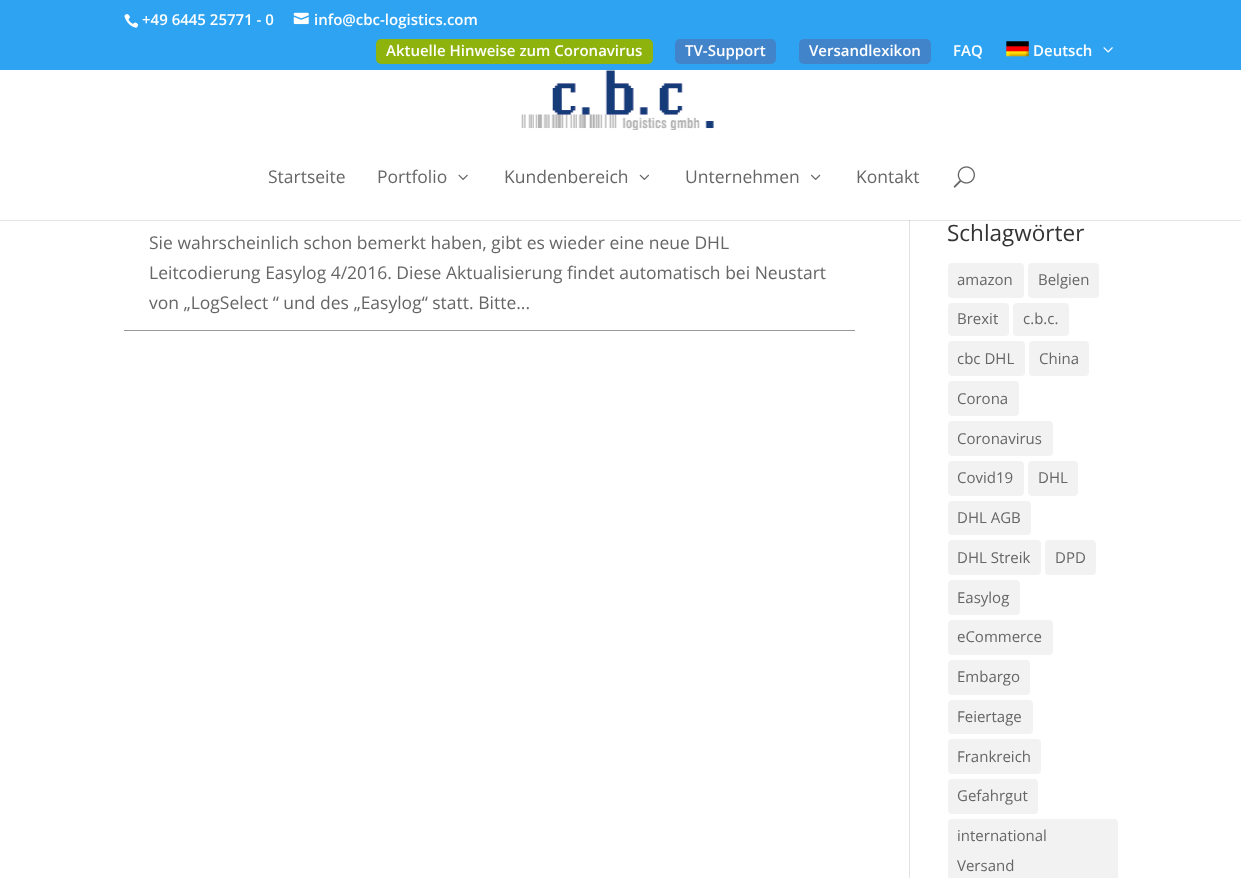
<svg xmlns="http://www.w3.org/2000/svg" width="1241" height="878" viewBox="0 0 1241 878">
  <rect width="100%" height="100%" fill="#ffffff"/>
  <rect x="0" y="0" width="1241" height="70" fill="#2ea3f2"/>
  <image x="124" y="14" width="15" height="14" href="img1.png"/>
  <text x="142" y="25" font-family="Open Sans" font-size="15" font-weight="600" fill="#ffffff">+49 6445 25771 - 0</text>
  <image x="293" y="12" width="16" height="13" href="img2.png"/>
  <text x="314" y="25" font-family="Open Sans" font-size="15" font-weight="600" fill="#ffffff">info@cbc-logistics.com</text>
  <rect x="376" y="39" width="277" height="25" rx="5" fill="#8db30c"/>
  <text x="386" y="56" font-family="Open Sans" font-size="15" font-weight="600" fill="#ffffff">Aktuelle Hinweise zum Coronavirus</text>
  <rect x="675" y="39" width="101" height="25" rx="5" fill="#4284ca"/>
  <text x="685" y="56" font-family="Open Sans" font-size="15" font-weight="600" fill="#ffffff">TV-Support</text>
  <rect x="799" y="39" width="132" height="25" rx="5" fill="#4284ca"/>
  <text x="809" y="56" font-family="Open Sans" font-size="15" font-weight="600" fill="#ffffff">Versandlexikon</text>
  <text x="953" y="56" font-family="Open Sans" font-size="15" font-weight="600" fill="#ffffff">FAQ</text>
  <image x="1006" y="41" width="23" height="16" href="img3.png"/>
  <text x="1033" y="56" font-family="Open Sans" font-size="15" font-weight="600" fill="#ffffff">Deutsch</text>
  <image x="1103" y="47" width="10" height="6" href="img4.png"/>
  <rect x="909" y="220" width="1" height="658" fill="#e2e2e2"/>
  <rect x="0" y="220" width="1241" height="1" fill="#000000" fill-opacity="0.1"/>
  <image x="521" y="70" width="193" height="60" href="img5.png"/>
  <text x="268" y="183" font-family="Open Sans" font-size="17.5" fill="#666666">Startseite</text>
  <text x="377" y="183" font-family="Open Sans" font-size="17.5" fill="#666666">Portfolio</text>
  <image x="458" y="174" width="10" height="6" href="img6.png"/>
  <text x="504" y="183" font-family="Open Sans" font-size="17.5" fill="#666666">Kundenbereich</text>
  <image x="639" y="174" width="10" height="6" href="img7.png"/>
  <text x="685" y="183" font-family="Open Sans" font-size="17.5" fill="#666666">Unternehmen</text>
  <image x="811" y="174" width="10" height="6" href="img8.png"/>
  <text x="856" y="183" font-family="Open Sans" font-size="17.5" fill="#666666">Kontakt</text>
  <image x="953" y="166" width="22" height="22" href="img9.png"/>
  <rect x="124" y="330" width="731" height="1" fill="#999999"/>
  <text x="149" y="249" font-family="Open Sans" font-size="17.5" fill="#666666">Sie wahrscheinlich schon bemerkt haben, gibt es wieder eine neue DHL</text>
  <text x="149" y="279" font-family="Open Sans" font-size="17.5" fill="#666666">Leitcodierung Easylog 4/2016. Diese Aktualisierung findet automatisch bei Neustart</text>
  <text x="149" y="309" font-family="Open Sans" font-size="17.5" fill="#666666">von „LogSelect “ und des „Easylog“ statt. Bitte...</text>
  <text x="947" y="241" font-family="Open Sans" font-size="22.5" fill="#333333">Schlagwörter</text>
  <rect x="948" y="263" width="76" height="35" rx="4" fill="#f2f2f2"/>
  <text x="957" y="285" font-family="Open Sans" font-size="15" fill="#666666">amazon</text>
  <rect x="1028" y="263" width="71" height="35" rx="4" fill="#f2f2f2"/>
  <text x="1038" y="285" font-family="Open Sans" font-size="15" fill="#666666">Belgien</text>
  <rect x="948" y="303" width="61" height="33" rx="4" fill="#f2f2f2"/>
  <text x="957" y="324" font-family="Open Sans" font-size="15" fill="#666666">Brexit</text>
  <rect x="1013" y="303" width="56" height="33" rx="4" fill="#f2f2f2"/>
  <text x="1023" y="324" font-family="Open Sans" font-size="15" fill="#666666">c.b.c.</text>
  <rect x="948" y="341" width="77" height="35" rx="4" fill="#f2f2f2"/>
  <text x="957" y="364" font-family="Open Sans" font-size="15" fill="#666666">cbc DHL</text>
  <rect x="1029" y="341" width="60" height="35" rx="4" fill="#f2f2f2"/>
  <text x="1039" y="364" font-family="Open Sans" font-size="15" fill="#666666">China</text>
  <rect x="948" y="381" width="71" height="35" rx="4" fill="#f2f2f2"/>
  <text x="957" y="404" font-family="Open Sans" font-size="15" fill="#666666">Corona</text>
  <rect x="948" y="421" width="105" height="35" rx="4" fill="#f2f2f2"/>
  <text x="957" y="444" font-family="Open Sans" font-size="15" fill="#666666">Coronavirus</text>
  <rect x="948" y="461" width="76" height="35" rx="4" fill="#f2f2f2"/>
  <text x="957" y="483" font-family="Open Sans" font-size="15" fill="#666666">Covid19</text>
  <rect x="1028" y="461" width="50" height="35" rx="4" fill="#f2f2f2"/>
  <text x="1038" y="483" font-family="Open Sans" font-size="15" fill="#666666">DHL</text>
  <rect x="948" y="501" width="83" height="34" rx="4" fill="#f2f2f2"/>
  <text x="957" y="523" font-family="Open Sans" font-size="15" fill="#666666">DHL AGB</text>
  <rect x="948" y="540" width="93" height="35" rx="4" fill="#f2f2f2"/>
  <text x="957" y="563" font-family="Open Sans" font-size="15" fill="#666666">DHL Streik</text>
  <rect x="1045" y="540" width="51" height="35" rx="4" fill="#f2f2f2"/>
  <text x="1055" y="563" font-family="Open Sans" font-size="15" fill="#666666">DPD</text>
  <rect x="948" y="580" width="72" height="35" rx="4" fill="#f2f2f2"/>
  <text x="957" y="603" font-family="Open Sans" font-size="15" fill="#666666">Easylog</text>
  <rect x="948" y="620" width="105" height="35" rx="4" fill="#f2f2f2"/>
  <text x="957" y="642" font-family="Open Sans" font-size="15" fill="#666666">eCommerce</text>
  <rect x="948" y="660" width="82" height="35" rx="4" fill="#f2f2f2"/>
  <text x="957" y="682" font-family="Open Sans" font-size="15" fill="#666666">Embargo</text>
  <rect x="948" y="700" width="85" height="34" rx="4" fill="#f2f2f2"/>
  <text x="957" y="722" font-family="Open Sans" font-size="15" fill="#666666">Feiertage</text>
  <rect x="948" y="739" width="93" height="35" rx="4" fill="#f2f2f2"/>
  <text x="957" y="762" font-family="Open Sans" font-size="15" fill="#666666">Frankreich</text>
  <rect x="948" y="779" width="90" height="35" rx="4" fill="#f2f2f2"/>
  <text x="957" y="801" font-family="Open Sans" font-size="15" fill="#666666">Gefahrgut</text>
  <rect x="948" y="819" width="170" height="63" rx="4" fill="#f2f2f2"/>
  <text x="957" y="841" font-family="Open Sans" font-size="15" fill="#666666">international</text>
  <text x="957" y="871" font-family="Open Sans" font-size="15" fill="#666666">Versand</text>
</svg>
